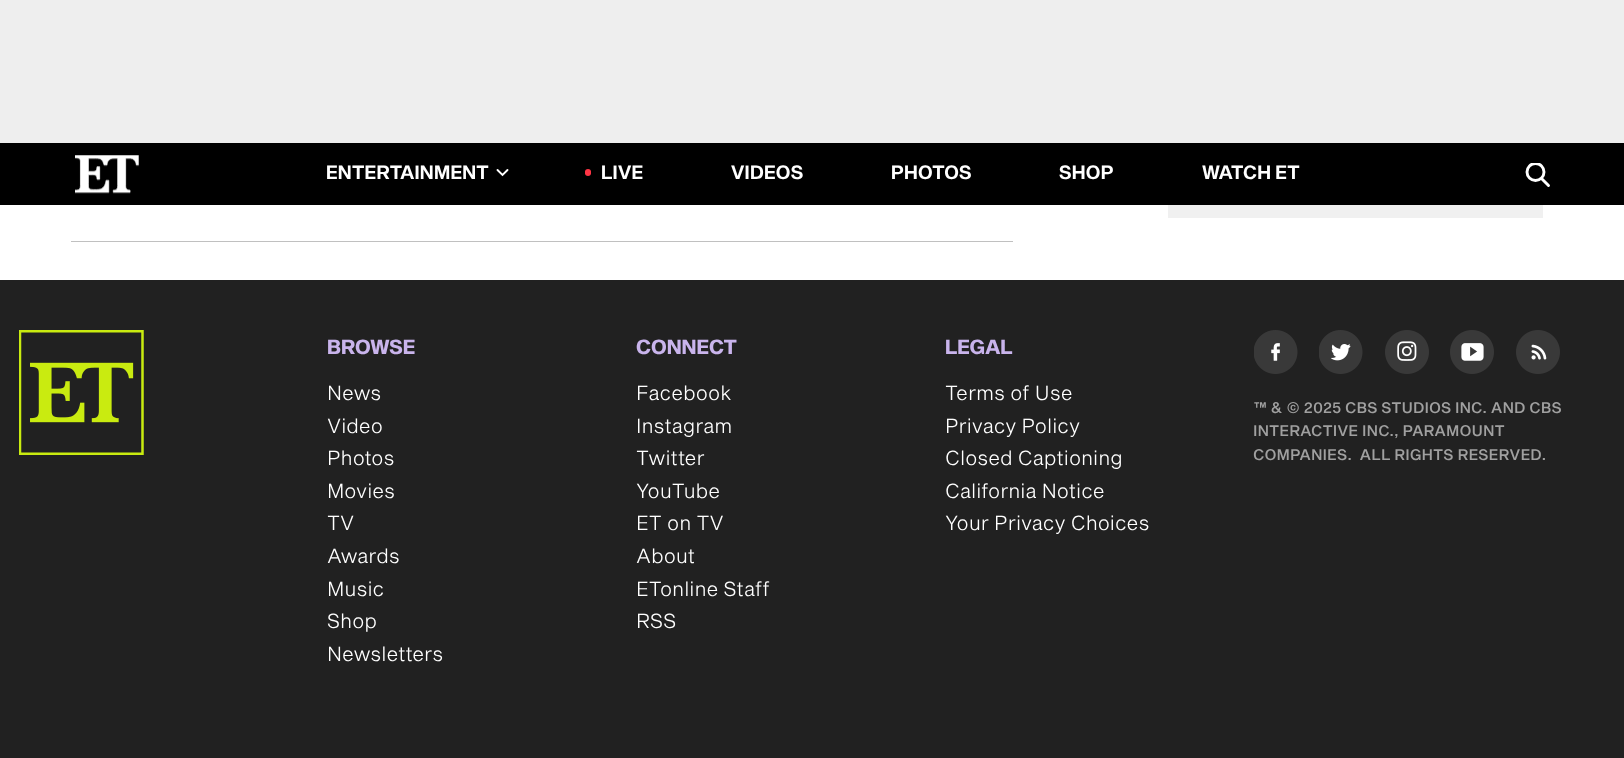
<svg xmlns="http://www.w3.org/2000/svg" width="1624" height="758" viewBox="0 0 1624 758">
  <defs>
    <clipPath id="clip1"><rect x="1525" y="163" width="25" height="25"/></clipPath>
  </defs>
  <rect width="100%" height="100%" fill="#ffffff"/>
  <rect x="0" y="0" width="1624" height="143" fill="#eeeeee"/>
  <rect x="0" y="143" width="1624" height="62" fill="#000000"/>
  <image x="75" y="155" width="64" height="39" href="img1.png"/>
  <text x="326" y="179" font-family="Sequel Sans" font-size="18.75" font-weight="600" letter-spacing="0.25" fill="#ffffff">ENTERTAINMENT</text>
  <path d="M507.5 170L502.5 175L497.5 170" fill="none" stroke="#ffffff" stroke-width="1.9" stroke-linecap="round"/>
  <circle cx="588" cy="173" r="3" fill="#ff3545"/>
  <circle cx="588" cy="172" r="3" fill="#ff3545"/>
  <text x="601" y="179" font-family="Sequel Sans" font-size="18.75" font-weight="600" letter-spacing="0.25" fill="#ffffff">LIVE</text>
  <text x="731" y="179" font-family="Sequel Sans" font-size="18.75" font-weight="600" letter-spacing="0.25" fill="#ffffff">VIDEOS</text>
  <text x="891" y="179" font-family="Sequel Sans" font-size="18.75" font-weight="600" letter-spacing="0.25" fill="#ffffff">PHOTOS</text>
  <text x="1059" y="179" font-family="Sequel Sans" font-size="18.75" font-weight="600" letter-spacing="0.25" fill="#ffffff">SHOP</text>
  <text x="1202" y="179" font-family="Sequel Sans" font-size="18.75" font-weight="600" letter-spacing="0.25" fill="#ffffff">WATCH ET</text>
  <g clip-path="url(#clip1)">
    <circle cx="1535.5" cy="172" r="8.5" fill="none" stroke="#ffffff" stroke-width="2.9"/>
  </g>
  <path d="M1542 179L1548.5 185.5" fill="none" stroke="#ffffff" stroke-width="2.9" stroke-linecap="round" stroke-linejoin="round"/>
  <rect x="1168" y="205" width="375" height="13" fill="#f0f0f0"/>
  <rect x="71" y="241" width="942" height="1" fill="#c0c0c0"/>
  <rect x="0" y="280" width="1624" height="478" fill="#212121"/>
  <image x="19" y="330" width="125" height="125" href="img2.png"/>
  <text x="327" y="354" font-family="Sequel Sans" font-size="20" font-weight="bold" fill="#c9b4ec">BROWSE</text>
  <text x="327" y="400" font-family="Sequel Sans" font-size="20" font-weight="300" fill="#ffffff">News</text>
  <text x="327" y="433" font-family="Sequel Sans" font-size="20" font-weight="300" fill="#ffffff">Video</text>
  <text x="327" y="465" font-family="Sequel Sans" font-size="20" font-weight="300" fill="#ffffff">Photos</text>
  <text x="327" y="498" font-family="Sequel Sans" font-size="20" font-weight="300" fill="#ffffff">Movies</text>
  <text x="327" y="530" font-family="Sequel Sans" font-size="20" font-weight="300" fill="#ffffff">TV</text>
  <text x="327" y="563" font-family="Sequel Sans" font-size="20" font-weight="300" fill="#ffffff">Awards</text>
  <text x="327" y="596" font-family="Sequel Sans" font-size="20" font-weight="300" fill="#ffffff">Music</text>
  <text x="327" y="628" font-family="Sequel Sans" font-size="20" font-weight="300" fill="#ffffff">Shop</text>
  <text x="327" y="661" font-family="Sequel Sans" font-size="20" font-weight="300" fill="#ffffff">Newsletters</text>
  <text x="636" y="354" font-family="Sequel Sans" font-size="20" font-weight="bold" fill="#c9b4ec">CONNECT</text>
  <text x="636" y="400" font-family="Sequel Sans" font-size="20" font-weight="300" fill="#ffffff">Facebook</text>
  <text x="636" y="433" font-family="Sequel Sans" font-size="20" font-weight="300" fill="#ffffff">Instagram</text>
  <text x="636" y="465" font-family="Sequel Sans" font-size="20" font-weight="300" fill="#ffffff">Twitter</text>
  <text x="636" y="498" font-family="Sequel Sans" font-size="20" font-weight="300" fill="#ffffff">YouTube</text>
  <text x="636" y="530" font-family="Sequel Sans" font-size="20" font-weight="300" fill="#ffffff">ET on TV</text>
  <text x="636" y="563" font-family="Sequel Sans" font-size="20" font-weight="300" fill="#ffffff">About</text>
  <text x="636" y="596" font-family="Sequel Sans" font-size="20" font-weight="300" fill="#ffffff">ETonline Staff</text>
  <text x="636" y="628" font-family="Sequel Sans" font-size="20" font-weight="300" fill="#ffffff">RSS</text>
  <text x="945" y="354" font-family="Sequel Sans" font-size="20" font-weight="bold" fill="#c9b4ec">LEGAL</text>
  <text x="945" y="400" font-family="Sequel Sans" font-size="20" font-weight="300" fill="#ffffff">Terms of Use</text>
  <text x="945" y="433" font-family="Sequel Sans" font-size="20" font-weight="300" fill="#ffffff">Privacy Policy</text>
  <text x="945" y="465" font-family="Sequel Sans" font-size="20" font-weight="300" fill="#ffffff">Closed Captioning</text>
  <text x="945" y="498" font-family="Sequel Sans" font-size="20" font-weight="300" fill="#ffffff">California Notice</text>
  <text x="945" y="530" font-family="Sequel Sans" font-size="20" font-weight="300" fill="#ffffff">Your Privacy Choices</text>
  <image x="1254" y="330" width="44" height="44" href="img3.png"/>
  <image x="1319" y="330" width="44" height="44" href="img4.png"/>
  <image x="1385" y="330" width="44" height="44" href="img5.png"/>
  <image x="1450" y="330" width="44" height="44" href="img6.png"/>
  <image x="1516" y="330" width="44" height="44" href="img7.png"/>
  <text x="1253" y="413" font-family="Sequel Sans" font-size="15" font-weight="500" fill="#a0a0a0">™ &amp; © 2025 CBS STUDIOS INC. AND CBS</text>
  <text x="1253" y="436" font-family="Sequel Sans" font-size="15" font-weight="500" fill="#a0a0a0">INTERACTIVE INC., PARAMOUNT</text>
  <text x="1253" y="460" font-family="Sequel Sans" font-size="15" font-weight="500" fill="#a0a0a0" xml:space="preserve">COMPANIES.  ALL RIGHTS RESERVED.</text>
</svg>
